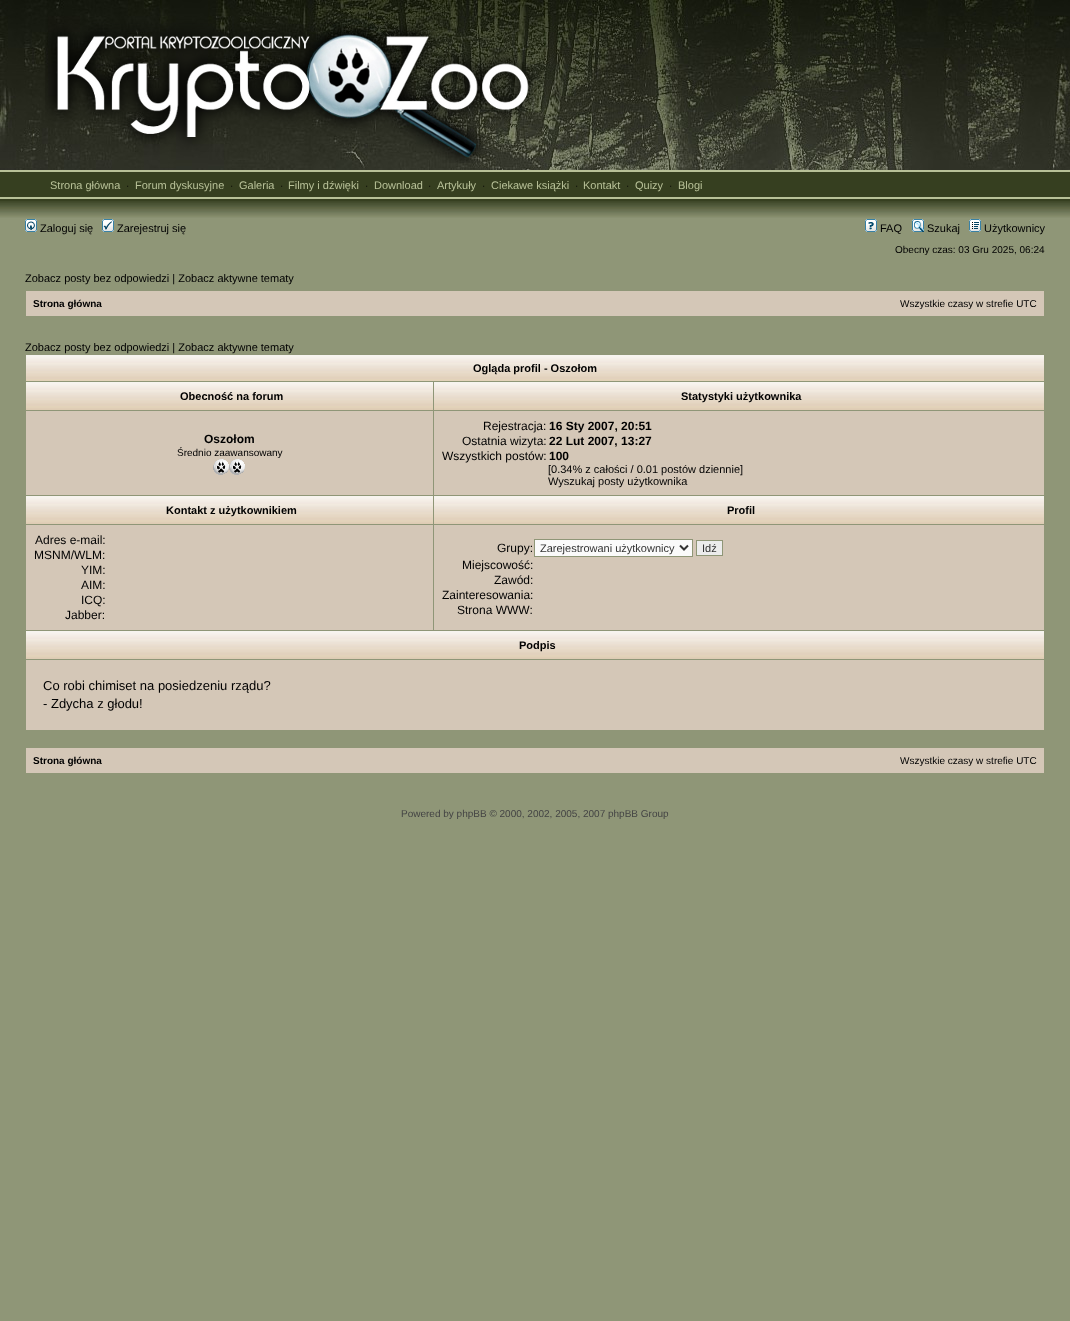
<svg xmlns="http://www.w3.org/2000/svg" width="1070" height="1321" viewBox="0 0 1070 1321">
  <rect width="100%" height="100%" fill="#8f9677"/>
  <image x="0" y="0" width="1070" height="170" href="img1.png"/>
  <image x="45" y="19" width="496" height="144" href="img2.png"/>
  <rect x="0" y="172" width="1070" height="25" fill="#363f20"/>
  <rect x="0" y="170" width="1070" height="2" fill="#b8c198"/>
  <rect x="0" y="197" width="1070" height="2" fill="#b8c198"/>
  <text x="50" y="189" font-family="Liberation Sans" font-size="11" fill="#b8c198">Strona główna</text>
  <text x="126" y="189" font-family="Liberation Sans" font-size="10" fill="#000000">·</text>
  <text x="135" y="189" font-family="Liberation Sans" font-size="11" fill="#b8c198">Forum dyskusyjne</text>
  <text x="230" y="189" font-family="Liberation Sans" font-size="10" fill="#000000">·</text>
  <text x="239" y="189" font-family="Liberation Sans" font-size="11" fill="#b8c198">Galeria</text>
  <text x="280" y="189" font-family="Liberation Sans" font-size="10" fill="#000000">·</text>
  <text x="288" y="189" font-family="Liberation Sans" font-size="11" fill="#b8c198">Filmy i dźwięki</text>
  <text x="365" y="189" font-family="Liberation Sans" font-size="10" fill="#000000">·</text>
  <text x="374" y="189" font-family="Liberation Sans" font-size="11" fill="#b8c198">Download</text>
  <text x="428" y="189" font-family="Liberation Sans" font-size="10" fill="#000000">·</text>
  <text x="437" y="189" font-family="Liberation Sans" font-size="11" fill="#b8c198">Artykuły</text>
  <text x="482" y="189" font-family="Liberation Sans" font-size="10" fill="#000000">·</text>
  <text x="491" y="189" font-family="Liberation Sans" font-size="11" fill="#b8c198">Ciekawe książki</text>
  <text x="575" y="189" font-family="Liberation Sans" font-size="10" fill="#000000">·</text>
  <text x="583" y="189" font-family="Liberation Sans" font-size="11" fill="#b8c198">Kontakt</text>
  <text x="626" y="189" font-family="Liberation Sans" font-size="10" fill="#000000">·</text>
  <text x="635" y="189" font-family="Liberation Sans" font-size="11" fill="#b8c198">Quizy</text>
  <text x="669" y="189" font-family="Liberation Sans" font-size="10" fill="#000000">·</text>
  <text x="678" y="189" font-family="Liberation Sans" font-size="11" fill="#b8c198">Blogi</text>
  <rect x="0" y="199" width="1070" height="2" fill="#363f20"/>
  <image x="0" y="201" width="1070" height="18" href="img3.png"/>
  <image x="25" y="219" width="12" height="13" href="img4.png"/>
  <text x="40" y="232" font-family="Liberation Sans" font-size="11" fill="#000000">Zaloguj się</text>
  <image x="102" y="219" width="12" height="13" href="img5.png"/>
  <text x="117" y="232" font-family="Liberation Sans" font-size="11" fill="#000000">Zarejestruj się</text>
  <image x="865" y="219" width="12" height="13" href="img6.png"/>
  <text x="880" y="232" font-family="Liberation Sans" font-size="11" fill="#000000">FAQ</text>
  <image x="912" y="219" width="12" height="13" href="img7.png"/>
  <text x="927" y="232" font-family="Liberation Sans" font-size="11" fill="#000000">Szukaj</text>
  <image x="969" y="219" width="12" height="13" href="img8.png"/>
  <text x="984" y="232" font-family="Liberation Sans" font-size="11" fill="#000000">Użytkownicy</text>
  <text x="895" y="253" font-family="Liberation Sans" font-size="10" fill="#000000">Obecny czas: 03 Gru 2025, 06:24</text>
  <text x="25" y="282" font-family="Liberation Sans" font-size="11" fill="#000000">Zobacz posty bez odpowiedzi | Zobacz aktywne tematy</text>
  <rect x="26" y="291" width="1018" height="25" fill="#d4c7b7"/>
  <text x="33" y="307" font-family="Liberation Sans" font-size="10" font-weight="bold" fill="#000000">Strona główna</text>
  <text x="900" y="307" font-family="Liberation Sans" font-size="10" fill="#000000">Wszystkie czasy w strefie UTC</text>
  <text x="25" y="351" font-family="Liberation Sans" font-size="11" fill="#000000">Zobacz posty bez odpowiedzi | Zobacz aktywne tematy</text>
  <image x="26" y="355" width="1018" height="26" href="img9.png"/>
  <text x="473" y="372" font-family="Liberation Sans" font-size="11" font-weight="bold" fill="#000000">Ogląda profil - Oszołom</text>
  <image x="26" y="382" width="407" height="28" href="img10.png"/>
  <text x="180" y="400" font-family="Liberation Sans" font-size="11" font-weight="bold" fill="#000000">Obecność na forum</text>
  <image x="434" y="382" width="610" height="28" href="img11.png"/>
  <text x="681" y="400" font-family="Liberation Sans" font-size="11" font-weight="bold" fill="#000000">Statystyki użytkownika</text>
  <rect x="26" y="411" width="407" height="84" fill="#d4c7b7"/>
  <text x="204" y="443" font-family="Liberation Sans" font-size="12" font-weight="bold" fill="#000000">Oszołom</text>
  <text x="177" y="456" font-family="Liberation Sans" font-size="10" fill="#000000">Średnio zaawansowany</text>
  <image x="213" y="459" width="32" height="16" href="img12.png"/>
  <rect x="434" y="411" width="610" height="84" fill="#d4c7b7"/>
  <text x="483" y="430" font-family="Liberation Sans" font-size="12" fill="#000000">Rejestracja:</text>
  <text x="549" y="430" font-family="Liberation Sans" font-size="12" font-weight="bold" fill="#000000">16 Sty 2007, 20:51</text>
  <text x="462" y="445" font-family="Liberation Sans" font-size="12" fill="#000000">Ostatnia wizyta:</text>
  <text x="549" y="445" font-family="Liberation Sans" font-size="12" font-weight="bold" fill="#000000">22 Lut 2007, 13:27</text>
  <text x="442" y="460" font-family="Liberation Sans" font-size="12" fill="#000000">Wszystkich postów:</text>
  <text x="549" y="460" font-family="Liberation Sans" font-size="12" font-weight="bold" fill="#000000">100</text>
  <text x="548" y="473" font-family="Liberation Sans" font-size="11" fill="#000000">[0.34% z całości / 0.01 postów dziennie]</text>
  <text x="548" y="485" font-family="Liberation Sans" font-size="11" fill="#000000">Wyszukaj posty użytkownika</text>
  <image x="26" y="496" width="407" height="28" href="img10.png"/>
  <text x="166" y="514" font-family="Liberation Sans" font-size="11" font-weight="bold" fill="#000000">Kontakt z użytkownikiem</text>
  <image x="434" y="496" width="610" height="28" href="img11.png"/>
  <text x="727" y="514" font-family="Liberation Sans" font-size="11" font-weight="bold" fill="#000000">Profil</text>
  <rect x="26" y="525" width="407" height="105" fill="#d4c7b7"/>
  <text x="35" y="544" font-family="Liberation Sans" font-size="12" fill="#000000">Adres e-mail:</text>
  <text x="34" y="559" font-family="Liberation Sans" font-size="12" fill="#000000">MSNM/WLM:</text>
  <text x="81" y="574" font-family="Liberation Sans" font-size="12" fill="#000000">YIM:</text>
  <text x="81" y="589" font-family="Liberation Sans" font-size="12" fill="#000000">AIM:</text>
  <text x="81" y="604" font-family="Liberation Sans" font-size="12" fill="#000000">ICQ:</text>
  <text x="65" y="619" font-family="Liberation Sans" font-size="12" fill="#000000">Jabber:</text>
  <rect x="434" y="525" width="610" height="105" fill="#d4c7b7"/>
  <text x="497" y="552" font-family="Liberation Sans" font-size="12" fill="#000000">Grupy:</text>
  <rect x="534.5" y="539.5" width="158" height="17" fill="#fafafa" stroke="#8f9677"/>
  <path d="M680 545.5L684 549.5L688 545.5" fill="none" stroke="#333333" stroke-width="2"/>
  <text x="540" y="552" font-family="Liberation Sans" font-size="11" fill="#333333">Zarejestrowani użytkownicy</text>
  <rect x="696.5" y="540.5" width="26" height="15" fill="#ececec" stroke="#8f9677"/>
  <text x="702" y="552" font-family="Liberation Sans" font-size="11" fill="#333333">Idź</text>
  <text x="462" y="569" font-family="Liberation Sans" font-size="12" fill="#000000">Miejscowość:</text>
  <text x="494" y="584" font-family="Liberation Sans" font-size="12" fill="#000000">Zawód:</text>
  <text x="442" y="599" font-family="Liberation Sans" font-size="12" fill="#000000">Zainteresowania:</text>
  <text x="457" y="614" font-family="Liberation Sans" font-size="12" fill="#000000">Strona WWW:</text>
  <image x="26" y="631" width="1018" height="28" href="img13.png"/>
  <text x="519" y="649" font-family="Liberation Sans" font-size="11" font-weight="bold" fill="#000000">Podpis</text>
  <rect x="26" y="660" width="1018" height="70" fill="#d4c7b7"/>
  <text x="43" y="690" font-family="Liberation Sans" font-size="13" fill="#000000">Co robi chimiset na posiedzeniu rządu?</text>
  <text x="43" y="708" font-family="Liberation Sans" font-size="13" fill="#000000">- Zdycha z głodu!</text>
  <rect x="26" y="748" width="1018" height="25" fill="#d4c7b7"/>
  <text x="33" y="764" font-family="Liberation Sans" font-size="10" font-weight="bold" fill="#000000">Strona główna</text>
  <text x="900" y="764" font-family="Liberation Sans" font-size="10" fill="#000000">Wszystkie czasy w strefie UTC</text>
  <text x="401" y="817" font-family="Liberation Sans" font-size="10" fill="#444444">Powered by phpBB © 2000, 2002, 2005, 2007 phpBB Group</text>
</svg>
